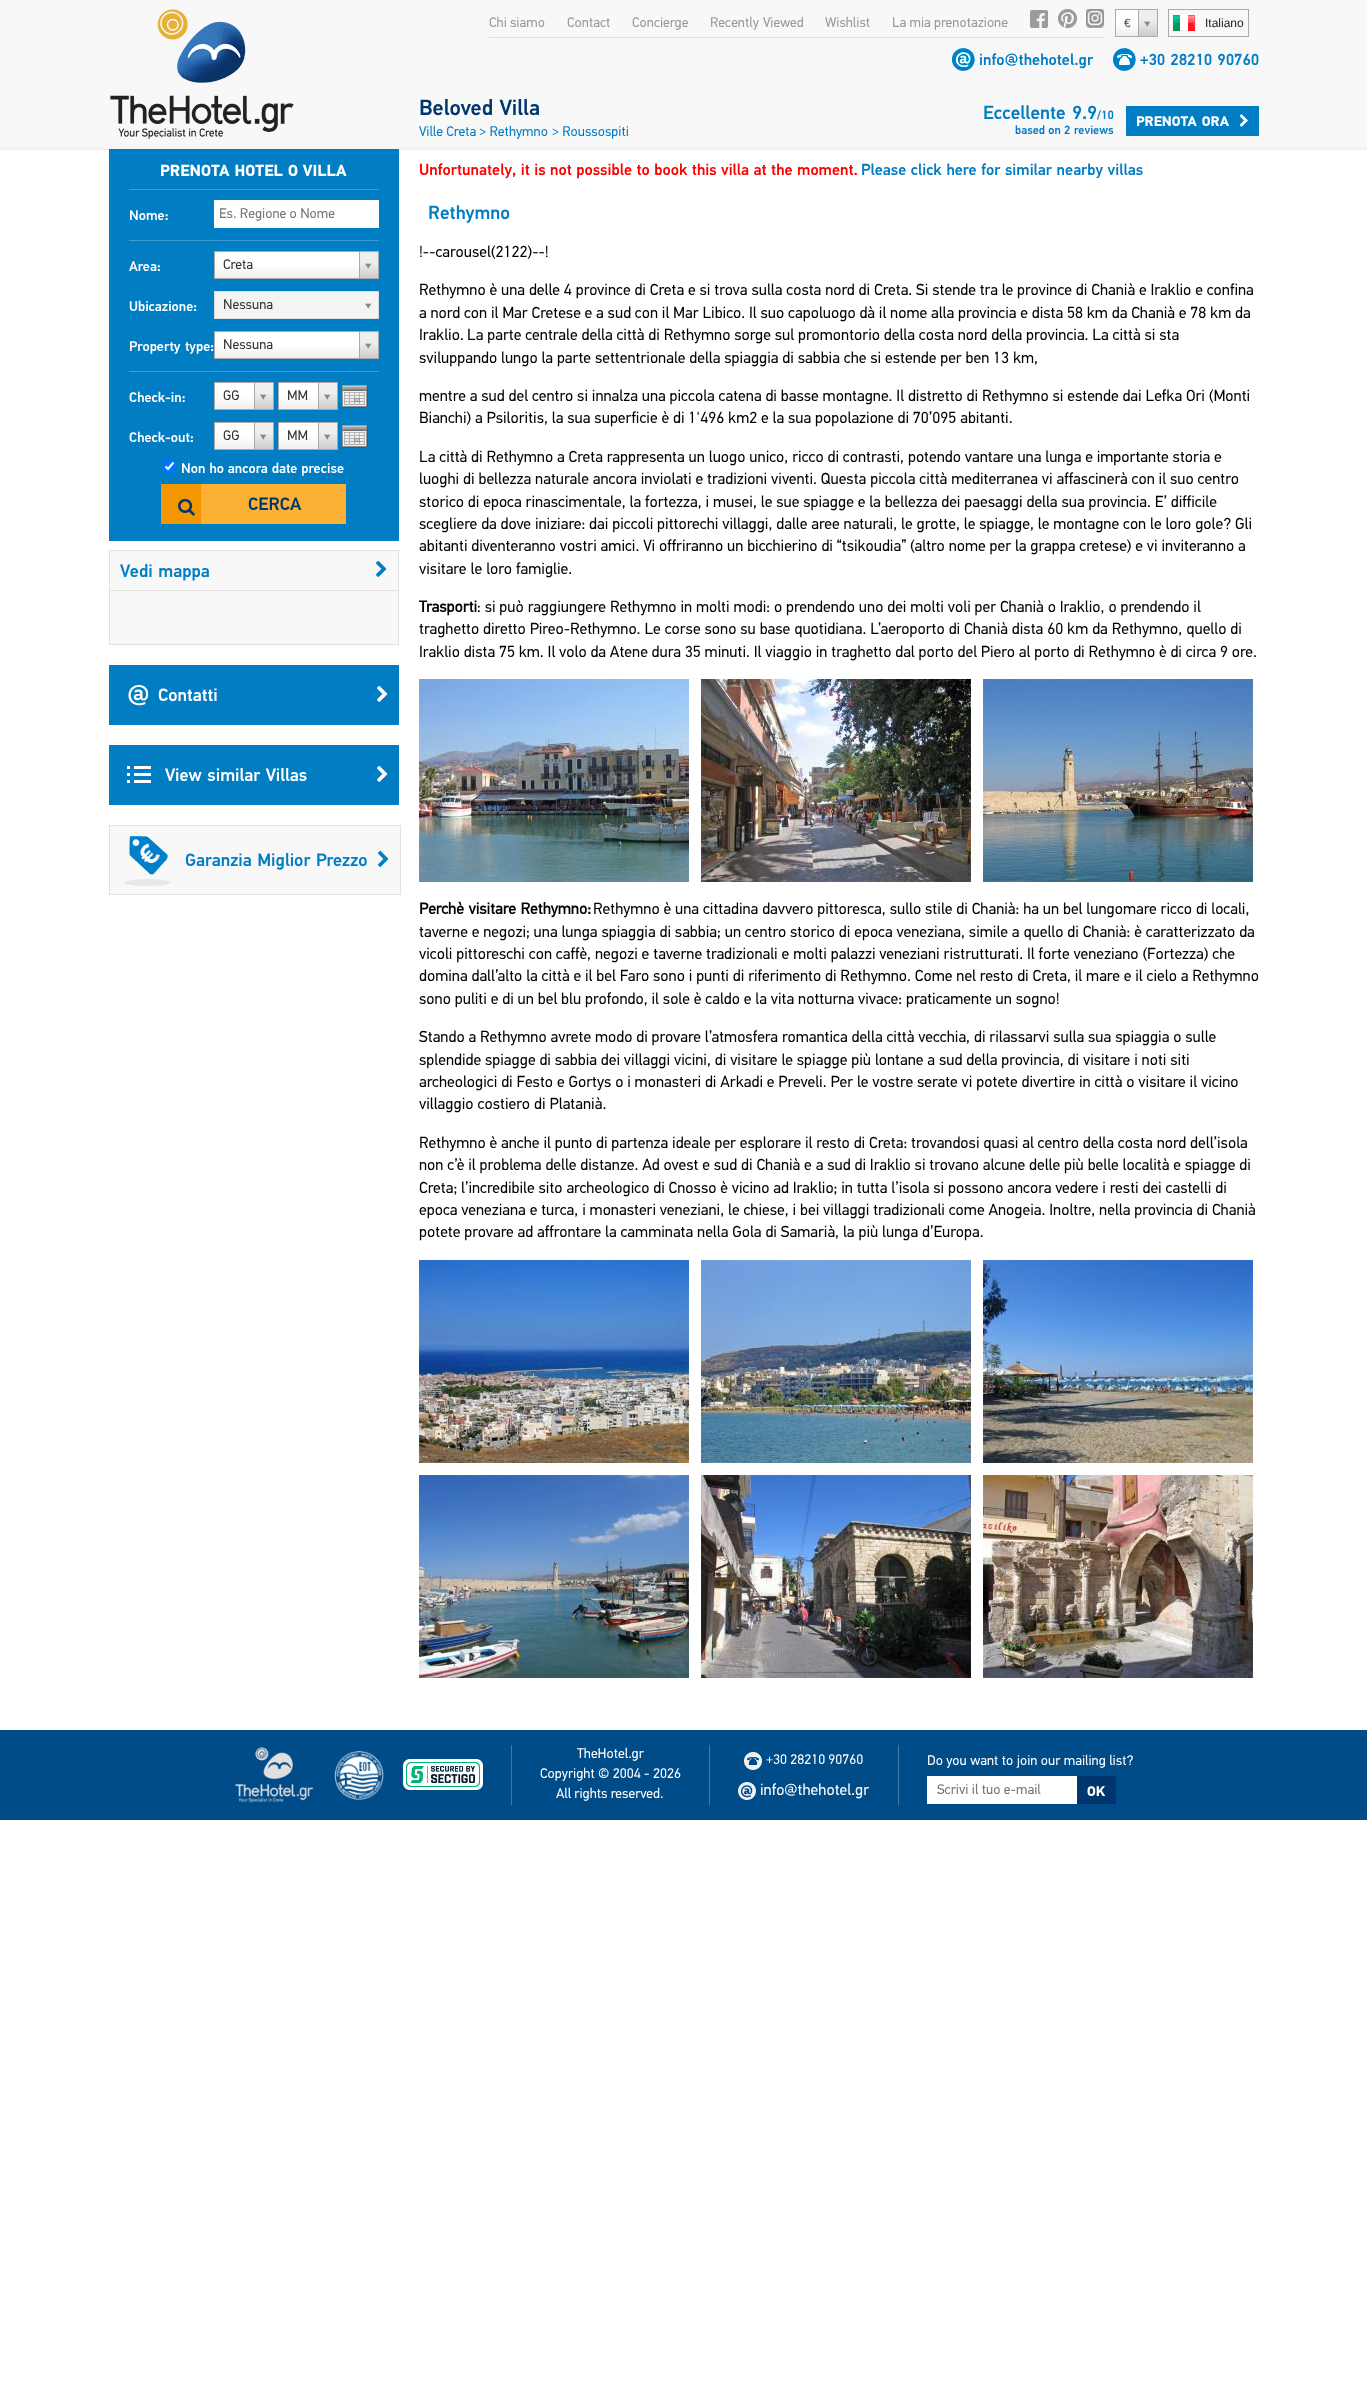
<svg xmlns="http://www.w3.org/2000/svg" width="1367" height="2382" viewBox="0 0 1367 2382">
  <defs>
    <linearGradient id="g1" gradientUnits="userSpaceOnUse" x1="1116" y1="36" x2="1116" y2="10"><stop offset="0" stop-color="#eeeeee"/><stop offset="0.5" stop-color="#ffffff"/></linearGradient>
    <linearGradient id="g2" gradientUnits="userSpaceOnUse" x1="1139" y1="36" x2="1139" y2="10"><stop offset="0" stop-color="#cccccc"/><stop offset="0.6" stop-color="#eeeeee"/></linearGradient>
    <linearGradient id="g3" gradientUnits="userSpaceOnUse" x1="215" y1="278" x2="215" y2="252"><stop offset="0" stop-color="#eeeeee"/><stop offset="0.5" stop-color="#ffffff"/></linearGradient>
    <linearGradient id="g4" gradientUnits="userSpaceOnUse" x1="360" y1="278" x2="360" y2="252"><stop offset="0" stop-color="#cccccc"/><stop offset="0.6" stop-color="#eeeeee"/></linearGradient>
    <linearGradient id="g5" gradientUnits="userSpaceOnUse" x1="215" y1="358" x2="215" y2="332"><stop offset="0" stop-color="#eeeeee"/><stop offset="0.5" stop-color="#ffffff"/></linearGradient>
    <linearGradient id="g6" gradientUnits="userSpaceOnUse" x1="360" y1="358" x2="360" y2="332"><stop offset="0" stop-color="#cccccc"/><stop offset="0.6" stop-color="#eeeeee"/></linearGradient>
    <linearGradient id="g7" gradientUnits="userSpaceOnUse" x1="215" y1="409" x2="215" y2="383"><stop offset="0" stop-color="#eeeeee"/><stop offset="0.5" stop-color="#ffffff"/></linearGradient>
    <linearGradient id="g8" gradientUnits="userSpaceOnUse" x1="255" y1="409" x2="255" y2="383"><stop offset="0" stop-color="#cccccc"/><stop offset="0.6" stop-color="#eeeeee"/></linearGradient>
    <linearGradient id="g9" gradientUnits="userSpaceOnUse" x1="279" y1="409" x2="279" y2="383"><stop offset="0" stop-color="#eeeeee"/><stop offset="0.5" stop-color="#ffffff"/></linearGradient>
    <linearGradient id="g10" gradientUnits="userSpaceOnUse" x1="319" y1="409" x2="319" y2="383"><stop offset="0" stop-color="#cccccc"/><stop offset="0.6" stop-color="#eeeeee"/></linearGradient>
    <linearGradient id="g11" gradientUnits="userSpaceOnUse" x1="215" y1="449" x2="215" y2="423"><stop offset="0" stop-color="#eeeeee"/><stop offset="0.5" stop-color="#ffffff"/></linearGradient>
    <linearGradient id="g12" gradientUnits="userSpaceOnUse" x1="255" y1="449" x2="255" y2="423"><stop offset="0" stop-color="#cccccc"/><stop offset="0.6" stop-color="#eeeeee"/></linearGradient>
    <linearGradient id="g13" gradientUnits="userSpaceOnUse" x1="279" y1="449" x2="279" y2="423"><stop offset="0" stop-color="#eeeeee"/><stop offset="0.5" stop-color="#ffffff"/></linearGradient>
    <linearGradient id="g14" gradientUnits="userSpaceOnUse" x1="319" y1="449" x2="319" y2="423"><stop offset="0" stop-color="#cccccc"/><stop offset="0.6" stop-color="#eeeeee"/></linearGradient>
  </defs>
  <rect width="100%" height="100%" fill="#ffffff"/>
  <image x="0" y="0" width="1367" height="150" href="img1.png"/>
  <image x="110" y="9" width="184" height="130" href="img2.png"/>
  <rect x="489" y="37" width="616" height="1" fill="#e1e1e1"/>
  <text x="489" y="27" font-family="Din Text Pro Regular" font-size="14" fill="#999999">Chi siamo</text>
  <text x="567" y="27" font-family="Din Text Pro Regular" font-size="14" fill="#999999">Contact</text>
  <text x="632" y="27" font-family="Din Text Pro Regular" font-size="14" fill="#999999">Concierge</text>
  <text x="710" y="27" word-spacing="1" font-family="Din Text Pro Regular" font-size="14" fill="#999999">Recently Viewed</text>
  <text x="825" y="27" font-family="Din Text Pro Regular" font-size="14" fill="#999999">Wishlist</text>
  <text x="892" y="27" font-family="Din Text Pro Regular" font-size="14" fill="#999999">La mia prenotazione</text>
  <image x="1030" y="10" width="18" height="18" href="img3.png"/>
  <image x="1058" y="9" width="19" height="19" href="img4.png"/>
  <image x="1086" y="9" width="18" height="19" href="img5.png"/>
  <rect x="1116" y="10" width="22" height="26" fill="url(#g1)"/>
  <rect x="1115.5" y="9.5" width="42" height="27" fill="none" stroke="#aaaaaa"/>
  <text x="1124" y="27" font-family="Liberation Sans" font-size="12" fill="#444444">€</text>
  <rect x="1139" y="10" width="18" height="26" fill="url(#g2)"/>
  <rect x="1138" y="10" width="1" height="26" fill="#aaaaaa"/>
  <image x="1144" y="21" width="7" height="6" href="img6.png"/>
  <rect x="1168.5" y="9.5" width="80" height="27" fill="none" stroke="#aaaaaa"/>
  <image x="1173" y="15" width="22" height="16" href="img7.png"/>
  <text x="1205" y="27" font-family="Liberation Sans" font-size="12" fill="#222222">Italiano</text>
  <image x="952" y="48" width="23" height="23" href="img8.png"/>
  <text x="979" y="65" font-family="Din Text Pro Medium" font-size="16" font-weight="500" fill="#007dc3">info@thehotel.gr</text>
  <image x="1113" y="48" width="23" height="23" href="img9.png"/>
  <text x="1140" y="65" word-spacing="1" font-family="Din Text Pro Medium" font-size="16" font-weight="500" fill="#007dc3">+30 28210 90760</text>
  <rect x="109" y="149" width="290" height="392" fill="#007dc3"/>
  <rect x="129" y="240" width="250" height="1" fill="#409cd0"/>
  <rect x="129" y="189" width="250" height="1" fill="#409cd0"/>
  <text x="160" y="176" word-spacing="0.5" font-family="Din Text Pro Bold" font-size="16" font-weight="bold" fill="#ffffff">PRENOTA HOTEL O VILLA</text>
  <text x="129" y="220" font-family="Din Text Pro Medium" font-size="14" font-weight="500" fill="#ffffff">Nome:</text>
  <rect x="214" y="200" width="165" height="28" fill="#ffffff"/>
  <text x="219" y="218" word-spacing="0.25" font-family="Din Text Pro Regular" font-size="14" fill="#757575">Es. Regione o Nome</text>
  <rect x="129" y="371" width="250" height="1" fill="#409cd0"/>
  <text x="129" y="271" font-family="Din Text Pro Medium" font-size="14" font-weight="500" fill="#ffffff">Area:</text>
  <rect x="215" y="252" width="144" height="26" fill="url(#g3)"/>
  <rect x="214.5" y="251.5" width="164" height="27" fill="none" stroke="#aaaaaa"/>
  <text x="223" y="269" font-family="Din Text Pro Regular" font-size="14" fill="#333333">Creta</text>
  <rect x="360" y="252" width="18" height="26" fill="url(#g4)"/>
  <rect x="359" y="252" width="1" height="26" fill="#aaaaaa"/>
  <image x="365" y="263" width="7" height="6" href="img6.png"/>
  <text x="129" y="311" font-family="Din Text Pro Medium" font-size="14" font-weight="500" fill="#ffffff">Ubicazione:</text>
  <rect x="214.5" y="291.5" width="164" height="27" fill="#f4f4f4" stroke="#dddddd"/>
  <text x="223" y="309" font-family="Din Text Pro Regular" font-size="14" fill="#333333">Nessuna</text>
  <image x="365" y="303" width="7" height="6" href="img10.png"/>
  <text x="129" y="351" word-spacing="1" font-family="Din Text Pro Medium" font-size="14" font-weight="500" fill="#ffffff">Property type:</text>
  <rect x="215" y="332" width="144" height="26" fill="url(#g5)"/>
  <rect x="214.5" y="331.5" width="164" height="27" fill="none" stroke="#aaaaaa"/>
  <text x="223" y="349" font-family="Din Text Pro Regular" font-size="14" fill="#333333">Nessuna</text>
  <rect x="360" y="332" width="18" height="26" fill="url(#g6)"/>
  <rect x="359" y="332" width="1" height="26" fill="#aaaaaa"/>
  <image x="365" y="343" width="7" height="6" href="img6.png"/>
  <text x="129" y="402" font-family="Din Text Pro Medium" font-size="14" font-weight="500" fill="#ffffff">Check-in:</text>
  <rect x="215" y="383" width="39" height="26" fill="url(#g7)"/>
  <rect x="214.5" y="382.5" width="59" height="27" fill="none" stroke="#aaaaaa"/>
  <text x="223" y="400" font-family="Din Text Pro Regular" font-size="14" fill="#333333">GG</text>
  <rect x="255" y="383" width="18" height="26" fill="url(#g8)"/>
  <rect x="254" y="383" width="1" height="26" fill="#aaaaaa"/>
  <image x="260" y="394" width="7" height="6" href="img6.png"/>
  <rect x="279" y="383" width="39" height="26" fill="url(#g9)"/>
  <rect x="278.5" y="382.5" width="59" height="27" fill="none" stroke="#aaaaaa"/>
  <text x="287" y="400" font-family="Din Text Pro Regular" font-size="14" fill="#333333">MM</text>
  <rect x="319" y="383" width="18" height="26" fill="url(#g10)"/>
  <rect x="318" y="383" width="1" height="26" fill="#aaaaaa"/>
  <image x="324" y="394" width="7" height="6" href="img6.png"/>
  <image x="342" y="385" width="26" height="23" href="img11.png"/>
  <text x="129" y="442" font-family="Din Text Pro Medium" font-size="14" font-weight="500" fill="#ffffff">Check-out:</text>
  <rect x="215" y="423" width="39" height="26" fill="url(#g11)"/>
  <rect x="214.5" y="422.5" width="59" height="27" fill="none" stroke="#aaaaaa"/>
  <text x="223" y="440" font-family="Din Text Pro Regular" font-size="14" fill="#333333">GG</text>
  <rect x="255" y="423" width="18" height="26" fill="url(#g12)"/>
  <rect x="254" y="423" width="1" height="26" fill="#aaaaaa"/>
  <image x="260" y="434" width="7" height="6" href="img6.png"/>
  <rect x="279" y="423" width="39" height="26" fill="url(#g13)"/>
  <rect x="278.5" y="422.5" width="59" height="27" fill="none" stroke="#aaaaaa"/>
  <text x="287" y="440" font-family="Din Text Pro Regular" font-size="14" fill="#333333">MM</text>
  <rect x="319" y="423" width="18" height="26" fill="url(#g14)"/>
  <rect x="318" y="423" width="1" height="26" fill="#aaaaaa"/>
  <image x="324" y="434" width="7" height="6" href="img6.png"/>
  <image x="342" y="425" width="26" height="23" href="img11.png"/>
  <rect x="163" y="460" width="13" height="13" rx="2" fill="#0075ff"/>
  <path d="M165.5 466.5L168 469L173.5 462.5" fill="none" stroke="#ffffff" stroke-width="2.1"/>
  <text x="181" y="473" word-spacing="0.4" font-family="Din Text Pro Medium" font-size="14" font-weight="500" fill="#ffffff">Non ho ancora date precise</text>
  <rect x="201" y="484" width="145" height="40" fill="#fcb034"/>
  <rect x="161" y="484" width="40" height="40" fill="#f39700"/>
  <image x="178" y="498" width="17" height="18" href="img12.png"/>
  <text x="248" y="510" font-family="Din Text Pro Medium" font-size="18" font-weight="500" fill="#00366e">CERCA</text>
  <rect x="109.5" y="550.5" width="289" height="94" fill="#f8f8f8" stroke="#e1e1e1"/>
  <rect x="110" y="590" width="288" height="1" fill="#e1e1e1"/>
  <text x="120" y="577" word-spacing="1" font-family="Din Text Pro Medium" font-size="18" font-weight="500" fill="#007dc3">Vedi mappa</text>
  <image x="375" y="560" width="12" height="17" href="img13.png"/>
  <rect x="109" y="665" width="290" height="60" fill="#007dc3"/>
  <image x="128" y="685" width="20" height="21" href="img14.png"/>
  <text x="158" y="701" font-family="Din Text Pro Medium" font-size="18" font-weight="500" fill="#ffffff">Contatti</text>
  <image x="376" y="685" width="12" height="17" href="img15.png"/>
  <rect x="109" y="745" width="290" height="60" fill="#007dc3"/>
  <image x="127" y="766" width="24" height="17" href="img16.png"/>
  <text x="165" y="781" word-spacing="1" font-family="Din Text Pro Medium" font-size="18" font-weight="500" fill="#ffffff">View similar Villas</text>
  <image x="376" y="765" width="12" height="17" href="img15.png"/>
  <rect x="109.5" y="825.5" width="291" height="69" fill="#f8f8f8" stroke="#e1e1e1"/>
  <image x="124" y="836" width="46" height="50" href="img17.png"/>
  <text x="185" y="866" word-spacing="1" font-family="Din Text Pro Medium" font-size="18" font-weight="500" fill="#007dc3">Garanzia Miglior Prezzo</text>
  <image x="377" y="850" width="12" height="17" href="img13.png"/>
  <text x="419" y="115" word-spacing="1" font-family="Din Text Pro Medium" font-size="22" font-weight="500" fill="#00366e">Beloved Villa</text>
  <text x="419" y="136" font-family="Din Text Pro Regular" font-size="14" fill="#007dc3">Ville Creta &gt; Rethymno</text>
  <text x="552" y="136" font-family="Din Text Pro Regular" font-size="14" fill="#007dc3">&gt; Roussospiti</text>
  <text x="983" y="119" font-family="Din Text Pro Medium" font-size="19" font-weight="500" fill="#007dc3">Eccellente</text>
  <text x="1072" y="119" font-family="Din Text Pro Medium" font-size="19" font-weight="500" fill="#007dc3">9.9</text>
  <text x="1097" y="119" font-family="Din Text Pro Medium" font-size="12" font-weight="500" fill="#007dc3">/10</text>
  <text x="1015" y="134" word-spacing="0.25" font-family="Din Text Pro Medium" font-size="12" font-weight="500" fill="#007dc3">based on</text>
  <text x="1064" y="134" font-family="Din Text Pro Medium" font-size="12" font-weight="500" fill="#007dc3">2</text>
  <text x="1074" y="134" font-family="Din Text Pro Medium" font-size="12" font-weight="500" fill="#007dc3">reviews</text>
  <rect x="1126" y="106" width="133" height="30" fill="#007dc3"/>
  <text x="1136" y="126" word-spacing="1" font-family="Din Text Pro Bold" font-size="14" font-weight="bold" fill="#ffffff">PRENOTA ORA</text>
  <image x="1239" y="114" width="9" height="13" href="img18.png"/>
  <text x="419" y="175" word-spacing="0.4" font-family="Din Text Pro Medium" font-size="16" font-weight="500" fill="#ff0000">Unfortunately, it is not possible to book this villa at the moment.</text>
  <text x="861" y="175" word-spacing="0.5" font-family="Din Text Pro Medium" font-size="16" font-weight="500" fill="#007dc3">Please click here for similar nearby villas</text>
  <text x="428" y="219" font-family="Din Text Pro Medium" font-size="19" font-weight="500" fill="#007dc3">Rethymno</text>
  <text x="419" y="257" font-family="Din Text Pro Regular" font-size="16" fill="#000000">!--carousel(2122)--!</text>
  <text x="419" y="295" word-spacing="0.25" font-family="Din Text Pro Regular" font-size="16" fill="#000000">Rethymno è una delle 4 province di Creta e si trova sulla costa nord di Creta. Si stende tra le province di Chanià e Iraklio e confina</text>
  <text x="419" y="318" word-spacing="0.2" font-family="Din Text Pro Regular" font-size="16" fill="#000000">a nord con il Mar Cretese e a sud con il Mar Libico. Il suo capoluogo dà il nome alla provincia e dista 58 km da Chanià e 78 km da</text>
  <text x="419" y="340" font-family="Din Text Pro Regular" font-size="16" fill="#000000">Iraklio.</text>
  <text x="467" y="340" word-spacing="0.25" font-family="Din Text Pro Regular" font-size="16" fill="#000000">La parte centrale della città di Rethymno sorge sul promontorio della costa nord della provincia. La città si sta</text>
  <text x="419" y="363" word-spacing="0.25" font-family="Din Text Pro Regular" font-size="16" fill="#000000">sviluppando lungo la parte settentrionale della spiaggia di sabbia che si estende per ben 13 km,</text>
  <text x="419" y="401" word-spacing="0.25" font-family="Din Text Pro Regular" font-size="16" fill="#000000">mentre a sud del centro si innalza una piccola catena di basse montagne. Il distretto di Rethymno si estende dai Lefka Ori (Monti</text>
  <text x="419" y="423" word-spacing="0.25" font-family="Din Text Pro Regular" font-size="16" fill="#000000">Bianchi) a Psiloritis, la sua superficie è di 1'496 km2 e la sua popolazione di 70’095 abitanti.</text>
  <text x="419" y="462" word-spacing="0.25" font-family="Din Text Pro Regular" font-size="16" fill="#000000">La città di Rethymno a Creta rappresenta un luogo unico, ricco di contrasti, potendo vantare una lunga e importante storia e</text>
  <text x="419" y="484" word-spacing="0.3" font-family="Din Text Pro Regular" font-size="16" fill="#000000">luoghi di bellezza naturale ancora inviolati e tradizioni viventi. Questa piccola città mediterranea vi affascinerà con il suo centro</text>
  <text x="419" y="507" word-spacing="0.25" font-family="Din Text Pro Regular" font-size="16" fill="#000000">storico di epoca rinascimentale, la fortezza, i musei, le sue spiagge e la bellezza dei paesaggi della sua provincia. E’ difficile</text>
  <text x="419" y="529" word-spacing="0.25" font-family="Din Text Pro Regular" font-size="16" fill="#000000">scegliere da dove iniziare: dai piccoli pittorechi villaggi, dalle aree naturali, le grotte, le spiagge, le montagne con le loro gole? Gli</text>
  <text x="419" y="551" word-spacing="0.25" font-family="Din Text Pro Regular" font-size="16" fill="#000000">abitanti diventeranno vostri amici. Vi offriranno un bicchierino di “tsikoudia” (altro nome per la grappa cretese) e vi inviteranno a</text>
  <text x="419" y="574" word-spacing="0.5" font-family="Din Text Pro Regular" font-size="16" fill="#000000">visitare le loro famiglie.</text>
  <text x="419" y="612" font-family="Din Text Pro Regular" font-size="16" font-weight="bold" fill="#000000">Trasporti</text>
  <text x="477" y="612" word-spacing="0.25" font-family="Din Text Pro Regular" font-size="16" fill="#000000">: si può raggiungere Rethymno in molti modi: o prendendo uno dei molti voli per Chanià o Iraklio, o prendendo il</text>
  <text x="419" y="634" word-spacing="0.3" font-family="Din Text Pro Regular" font-size="16" fill="#000000">traghetto diretto Pireo-Rethymno. Le corse sono su base quotidiana. L’aeroporto di Chanià dista 60 km da Rethymno, quello di</text>
  <text x="419" y="657" word-spacing="0.2" font-family="Din Text Pro Regular" font-size="16" fill="#000000">Iraklio dista 75 km. Il volo da Atene dura 35 minuti. Il viaggio in traghetto dal porto del Piero al porto di Rethymno è di circa 9 ore.</text>
  <image x="419" y="679" width="270" height="203" href="img19.png"/>
  <image x="701" y="679" width="270" height="203" href="img20.png"/>
  <image x="983" y="679" width="270" height="203" href="img21.png"/>
  <text x="419" y="914" word-spacing="1" font-family="Din Text Pro Regular" font-size="16" font-weight="bold" fill="#000000">Perchè visitare Rethymno:</text>
  <text x="593" y="914" word-spacing="0.25" font-family="Din Text Pro Regular" font-size="16" fill="#000000">Rethymno è una cittadina davvero pittoresca, sullo stile di Chanià: ha un bel lungomare ricco di locali,</text>
  <text x="419" y="937" word-spacing="0.25" font-family="Din Text Pro Regular" font-size="16" fill="#000000">taverne e negozi; una lunga spiaggia di sabbia; un centro storico di epoca veneziana, simile a quello di Chanià: è caratterizzato da</text>
  <text x="419" y="959" word-spacing="0.3" font-family="Din Text Pro Regular" font-size="16" fill="#000000">vicoli pittoreschi con caffè, negozi e taverne tradizionali e molti palazzi veneziani ristrutturati. Il forte veneziano (Fortezza) che</text>
  <text x="419" y="981" word-spacing="0.25" font-family="Din Text Pro Regular" font-size="16" fill="#000000">domina dall’alto la città e il bel Faro sono i punti di riferimento di Rethymno. Come nel resto di Creta, il mare e il cielo a Rethymno</text>
  <text x="419" y="1004" word-spacing="0.25" font-family="Din Text Pro Regular" font-size="16" fill="#000000">sono puliti e di un bel blu profondo, il sole è caldo e la vita notturna vivace: praticamente un sogno!</text>
  <text x="419" y="1042" word-spacing="0.25" font-family="Din Text Pro Regular" font-size="16" fill="#000000">Stando a Rethymno avrete modo di provare l’atmosfera romantica della città vecchia, di rilassarvi sulla sua spiaggia o sulle</text>
  <text x="419" y="1065" word-spacing="0.25" font-family="Din Text Pro Regular" font-size="16" fill="#000000">splendide spiagge di sabbia dei villaggi vicini, di visitare le spiagge più lontane a sud della provincia, di visitare i noti siti</text>
  <text x="419" y="1087" word-spacing="0.25" font-family="Din Text Pro Regular" font-size="16" fill="#000000">archeologici di Festo e Gortys o i monasteri di Arkadi e Preveli. Per le vostre serate vi potete divertire in città o visitare il vicino</text>
  <text x="419" y="1109" word-spacing="0.5" font-family="Din Text Pro Regular" font-size="16" fill="#000000">villaggio costiero di Platanià.</text>
  <text x="419" y="1148" word-spacing="0.25" font-family="Din Text Pro Regular" font-size="16" fill="#000000">Rethymno è anche il punto di partenza ideale per esplorare il resto di Creta: trovandosi quasi al centro della costa nord dell’isola</text>
  <text x="419" y="1170" word-spacing="0.25" font-family="Din Text Pro Regular" font-size="16" fill="#000000">non c’è il problema delle distanze. Ad ovest e sud di Chanià e a sud di Iraklio si trovano alcune delle più belle località e spiagge di</text>
  <text x="419" y="1193" word-spacing="0.25" font-family="Din Text Pro Regular" font-size="16" fill="#000000">Creta; l’incredibile sito archeologico di Cnosso è vicino ad Iraklio; in tutta l’isola si possono ancora vedere i resti dei castelli di</text>
  <text x="419" y="1215" word-spacing="0.25" font-family="Din Text Pro Regular" font-size="16" fill="#000000">epoca veneziana e turca, i monasteri veneziani, le chiese, i bei villaggi tradizionali come Anogeia. Inoltre, nella provincia di Chanià</text>
  <text x="419" y="1237" word-spacing="0.25" font-family="Din Text Pro Regular" font-size="16" fill="#000000">potete provare ad affrontare la camminata nella Gola di Samarià, la più lunga d’Europa.</text>
  <image x="419" y="1260" width="270" height="203" href="img22.png"/>
  <image x="701" y="1260" width="270" height="203" href="img23.png"/>
  <image x="983" y="1260" width="270" height="203" href="img24.png"/>
  <image x="419" y="1475" width="270" height="203" href="img25.png"/>
  <image x="701" y="1475" width="270" height="203" href="img26.png"/>
  <image x="983" y="1475" width="270" height="203" href="img27.png"/>
  <rect x="0" y="1730" width="1367" height="90" fill="#004c89"/>
  <rect x="511" y="1745" width="1" height="60" fill="#4079a7"/>
  <image x="235" y="1747" width="79" height="56" href="img28.png"/>
  <image x="334" y="1751" width="50" height="49" href="img29.png"/>
  <image x="403" y="1759" width="80" height="31" href="img30.png"/>
  <rect x="709" y="1745" width="1" height="60" fill="#4079a7"/>
  <text x="577" y="1758" font-family="Din Text Pro Regular" font-size="14" fill="#ffffff">TheHotel.gr</text>
  <text x="540" y="1778" word-spacing="0.25" font-family="Din Text Pro Regular" font-size="14" fill="#ffffff">Copyright © 2004 - 2026</text>
  <text x="556" y="1798" font-family="Din Text Pro Regular" font-size="14" fill="#ffffff">All rights reserved.</text>
  <rect x="898" y="1745" width="1" height="60" fill="#4079a7"/>
  <image x="744" y="1752" width="18" height="18" href="img31.png"/>
  <text x="766" y="1764" font-family="Din Text Pro Regular" font-size="14" fill="#ffffff">+30 28210 90760</text>
  <image x="738" y="1782" width="18" height="18" href="img32.png"/>
  <text x="760" y="1795" font-family="Din Text Pro Regular" font-size="16" fill="#ffffff">info@thehotel.gr</text>
  <text x="927" y="1765" word-spacing="0.25" font-family="Din Text Pro Regular" font-size="14" fill="#ffffff">Do you want to join our mailing list?</text>
  <rect x="927" y="1776" width="150" height="28" fill="#ffffff"/>
  <text x="937" y="1794" word-spacing="0.25" font-family="Din Text Pro Regular" font-size="14" fill="#757575">Scrivi il tuo e-mail</text>
  <rect x="1077" y="1776" width="39" height="28" fill="#00366e"/>
  <text x="1087" y="1796" font-family="Din Text Pro Bold" font-size="14" font-weight="bold" fill="#ffffff">OK</text>
</svg>
